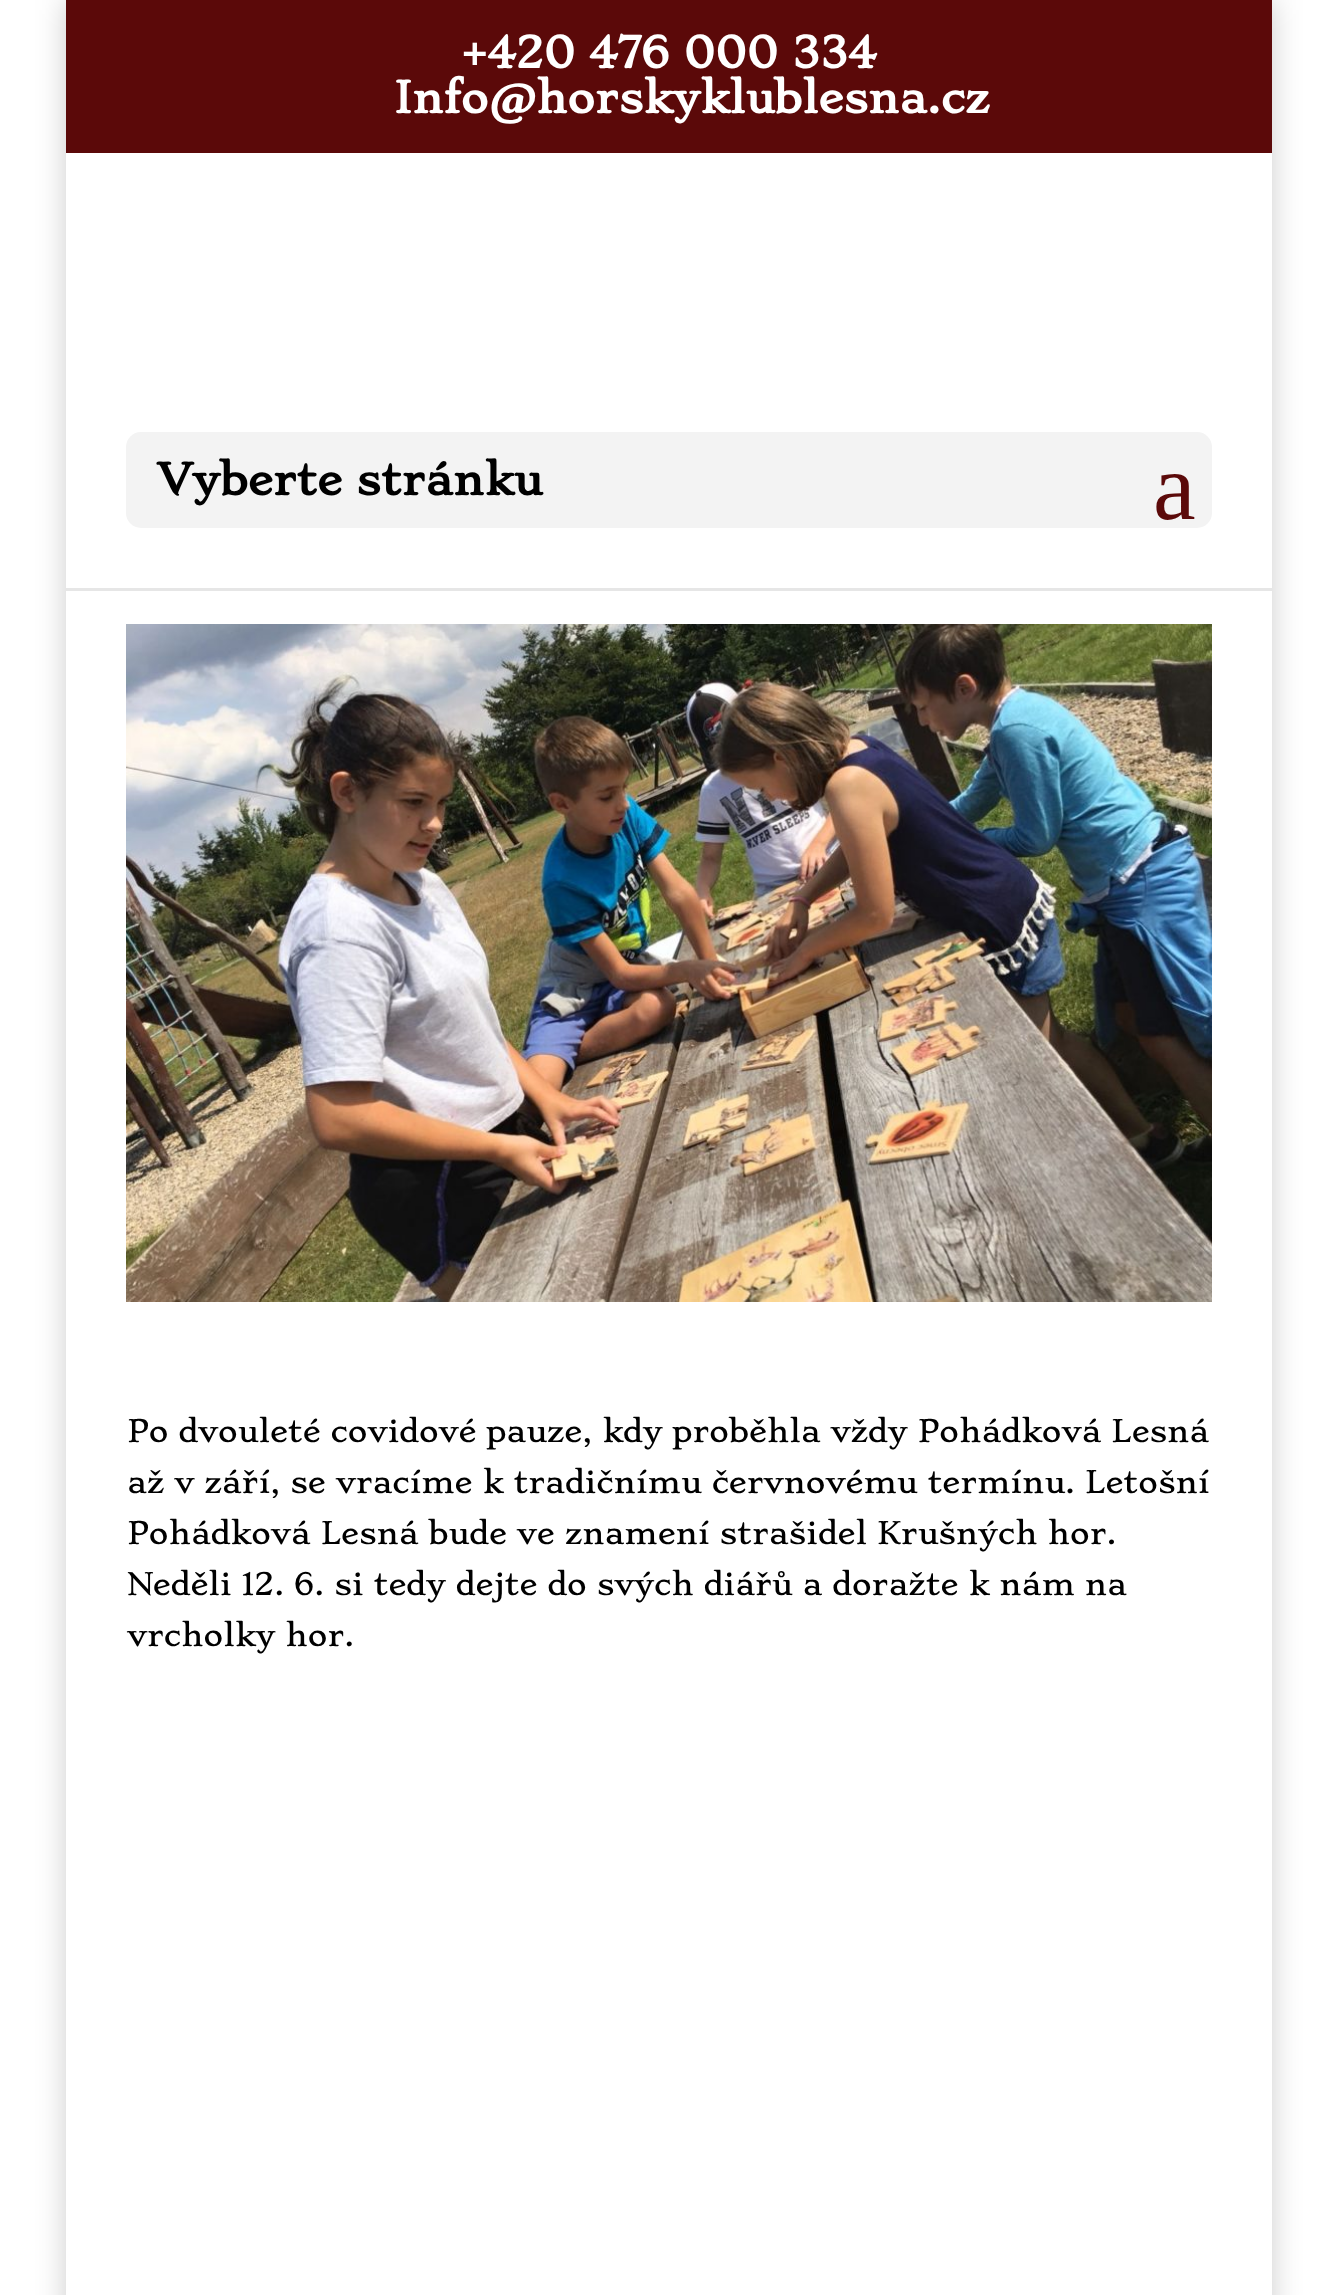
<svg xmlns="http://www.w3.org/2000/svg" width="1337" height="2295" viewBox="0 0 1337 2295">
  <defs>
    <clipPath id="clip1"><path d="M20 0H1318V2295H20ZM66 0H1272V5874H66Z" clip-rule="evenodd"/></clipPath>
    <filter id="blur1" x="-50%" y="-200%" width="200%" height="500%"><feGaussianBlur stdDeviation="15"/></filter>
  </defs>
  <rect width="100%" height="100%" fill="#ffffff"/>
  <g clip-path="url(#clip1)">
    <rect x="66" y="0" width="1206" height="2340" fill="#000000" fill-opacity="0.2" filter="url(#blur1)"/>
  </g>
  <rect x="66" y="0" width="1206" height="153" fill="#5b0909"/>
  <text x="461" y="68" font-family="Stoke" font-size="42" font-weight="bold" fill="#ffffff">+420 476 000 334</text>
  <text x="394" y="113" font-family="Stoke" font-size="42" font-weight="bold" fill="#ffffff">Info@horskyklublesna.cz</text>
  <rect x="66" y="588" width="1206" height="3" fill="#e6e6e6"/>
  <rect x="126" y="432" width="1086" height="96" rx="15" fill="#f3f3f3"/>
  <text x="157" y="495" font-family="Stoke" font-size="42" font-weight="bold" fill="#000000">Vyberte stránku</text>
  <text x="1153" y="519" font-family="Liberation Serif" font-size="96" fill="#5b0909">a</text>
  <image x="126" y="624" width="1086" height="678" href="img1.png"/>
  <text x="127" y="1442" font-family="Stoke" font-size="30" fill="#000000">Po dvouleté covidové pauze, kdy proběhla vždy Pohádková Lesná</text>
  <text x="127" y="1493" font-family="Stoke" font-size="30" fill="#000000">až v září, se vracíme k tradičnímu červnovému termínu. Letošní</text>
  <text x="127" y="1544" font-family="Stoke" font-size="30" fill="#000000">Pohádková Lesná bude ve znamení strašidel Krušných hor.</text>
  <text x="127" y="1595" font-family="Stoke" font-size="30" fill="#000000">Neděli 12. 6. si tedy dejte do svých diářů a doražte k nám na</text>
  <text x="127" y="1646" font-family="Stoke" font-size="30" fill="#000000">vrcholky hor.</text>
</svg>
